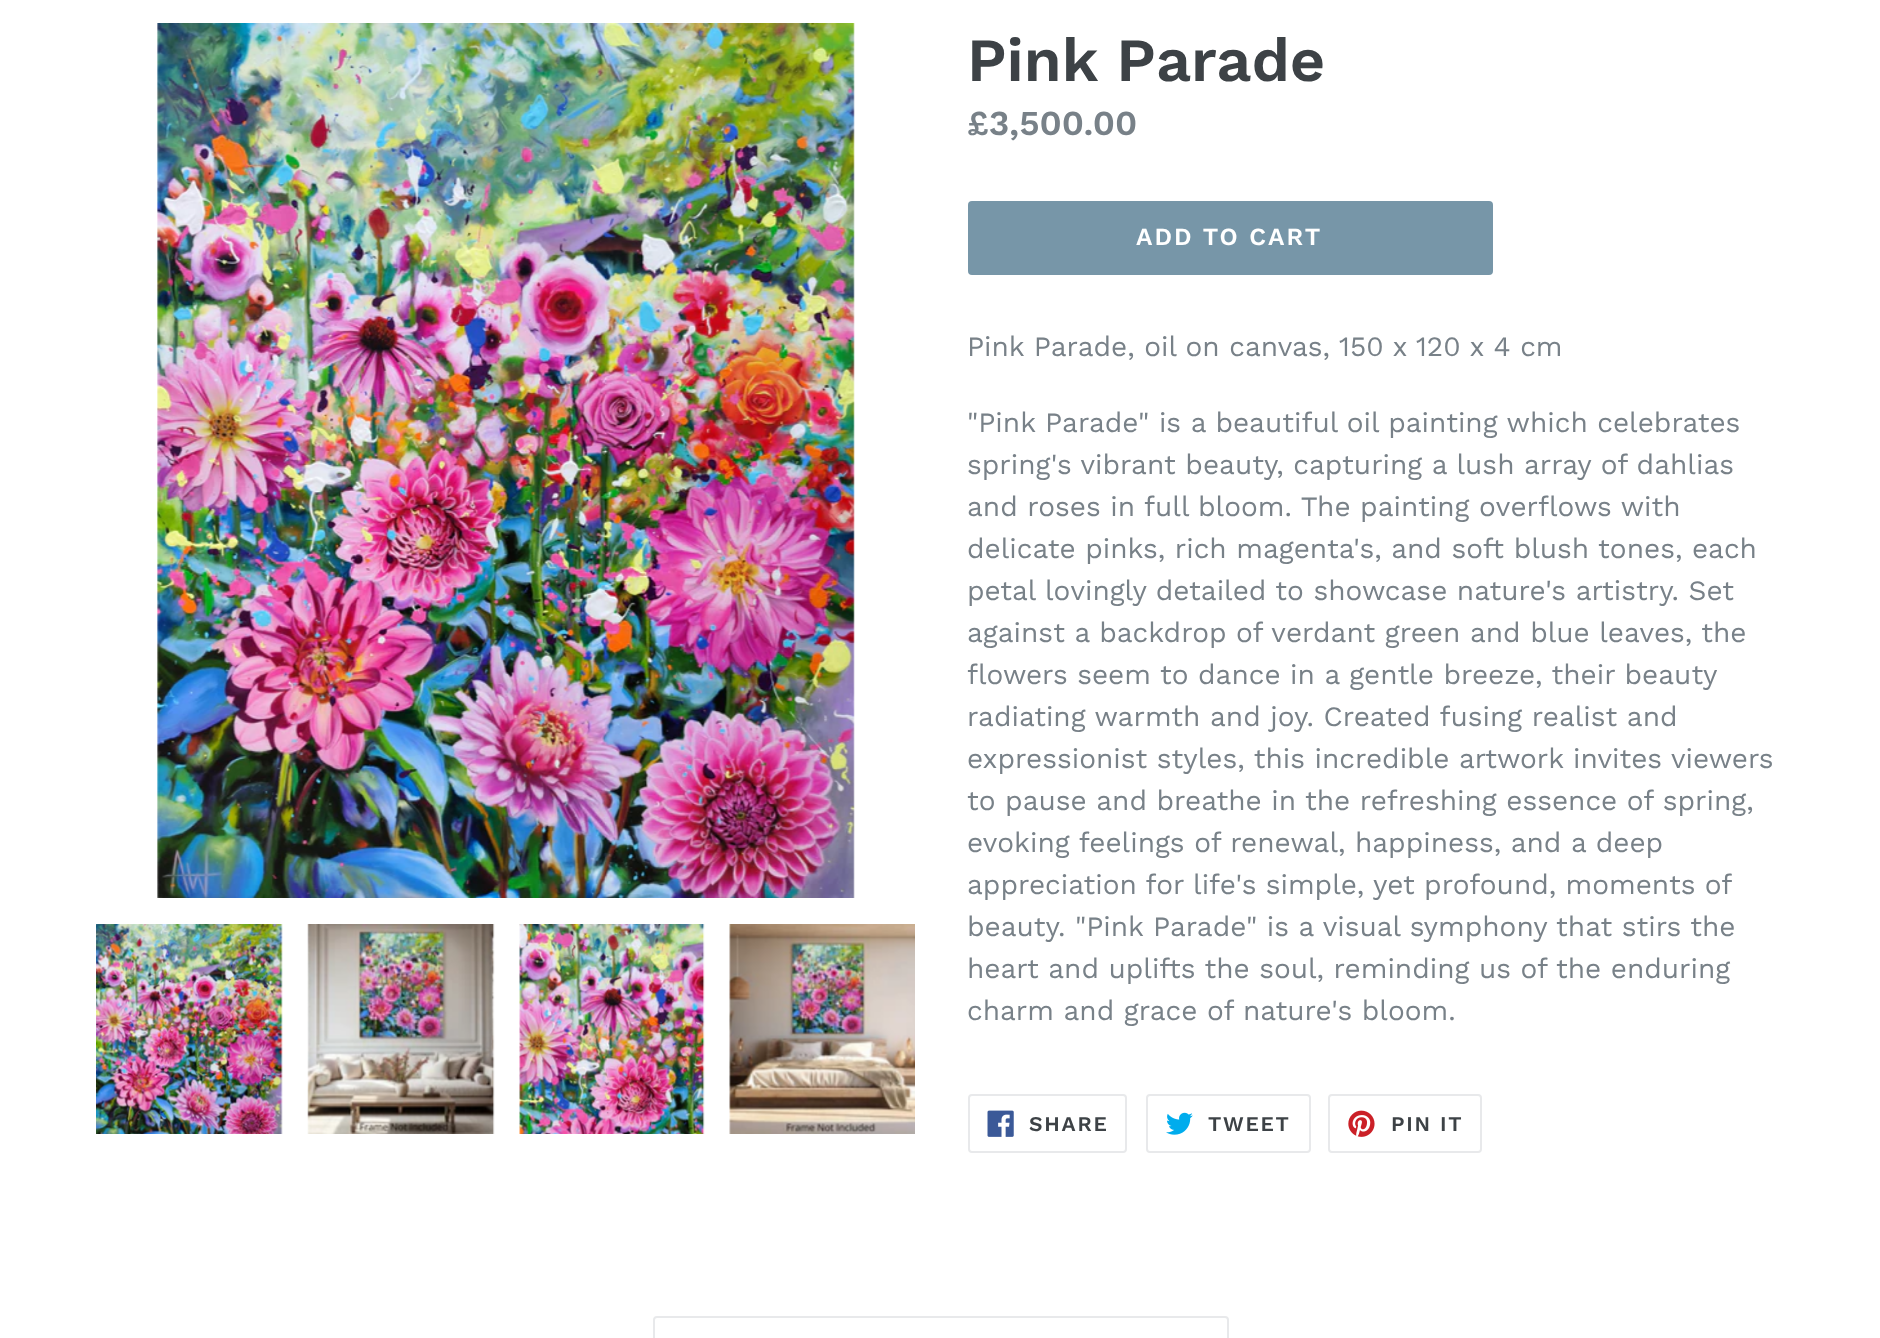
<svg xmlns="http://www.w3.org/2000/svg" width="1880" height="1338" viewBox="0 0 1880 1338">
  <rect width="100%" height="100%" fill="#ffffff"/>
  <image x="157" y="23" width="698" height="875" href="img1.png"/>
  <image x="96" y="924" width="187" height="210" href="img2.png"/>
  <image x="307" y="924" width="188" height="210" href="img3.png"/>
  <image x="519" y="924" width="186" height="210" href="img4.png"/>
  <image x="729" y="924" width="186" height="210" href="img5.png"/>
  <text x="967" y="81" font-family="Work Sans" font-size="61.25" font-weight="600" fill="#3d4246">Pink Parade</text>
  <text x="967" y="135" font-family="Work Sans" font-size="35" font-weight="600" fill="#788188">£3,500.00</text>
  <rect x="968" y="201" width="525" height="74" rx="4" fill="#7796a8"/>
  <text x="1136" y="245" font-family="Work Sans" font-size="24.5" font-weight="600" letter-spacing="2" fill="#ffffff">ADD TO CART</text>
  <text x="967" y="356" font-family="Work Sans" font-size="28" fill="#788188">Pink Parade, oil on canvas, 150 x 120 x 4 cm</text>
  <text x="967" y="432" font-family="Work Sans" font-size="28" fill="#788188">"Pink Parade" is a beautiful oil painting which celebrates</text>
  <text x="967" y="474" font-family="Work Sans" font-size="28" fill="#788188">spring's vibrant beauty, capturing a lush array of dahlias</text>
  <text x="967" y="516" font-family="Work Sans" font-size="28" fill="#788188">and roses in full bloom. The painting overflows with</text>
  <text x="967" y="558" font-family="Work Sans" font-size="28" fill="#788188">delicate pinks, rich magenta's, and soft blush tones, each</text>
  <text x="967" y="600" font-family="Work Sans" font-size="28" fill="#788188">petal lovingly detailed to showcase nature's artistry. Set</text>
  <text x="967" y="642" font-family="Work Sans" font-size="28" fill="#788188">against a backdrop of verdant green and blue leaves, the</text>
  <text x="967" y="684" font-family="Work Sans" font-size="28" fill="#788188">flowers seem to dance in a gentle breeze, their beauty</text>
  <text x="967" y="726" font-family="Work Sans" font-size="28" fill="#788188">radiating warmth and joy. Created fusing realist and</text>
  <text x="967" y="768" font-family="Work Sans" font-size="28" fill="#788188">expressionist styles, this incredible artwork invites viewers</text>
  <text x="967" y="810" font-family="Work Sans" font-size="28" fill="#788188">to pause and breathe in the refreshing essence of spring,</text>
  <text x="967" y="852" font-family="Work Sans" font-size="28" fill="#788188">evoking feelings of renewal, happiness, and a deep</text>
  <text x="967" y="894" word-spacing="-0.25" font-family="Work Sans" font-size="28" fill="#788188">appreciation for life's simple, yet profound, moments of</text>
  <text x="967" y="936" font-family="Work Sans" font-size="28" fill="#788188">beauty. "Pink Parade" is a visual symphony that stirs the</text>
  <text x="967" y="978" font-family="Work Sans" font-size="28" fill="#788188">heart and uplifts the soul, reminding us of the enduring</text>
  <text x="967" y="1020" font-family="Work Sans" font-size="28" fill="#788188">charm and grace of nature's bloom.</text>
  <rect x="969" y="1095" width="157" height="57" rx="3" fill="none" stroke="#e8e9eb" stroke-width="2"/>
  <image x="987" y="1110" width="27" height="27" href="img6.png"/>
  <text x="1029" y="1131" font-family="Work Sans" font-size="21" font-weight="600" letter-spacing="1.75" fill="#3d4246">SHARE</text>
  <rect x="1147" y="1095" width="163" height="57" rx="3" fill="none" stroke="#e8e9eb" stroke-width="2"/>
  <image x="1166" y="1112" width="27" height="23" href="img7.png"/>
  <text x="1208" y="1131" font-family="Work Sans" font-size="21" font-weight="600" letter-spacing="1.75" fill="#3d4246">TWEET</text>
  <rect x="1329" y="1095" width="152" height="57" rx="3" fill="none" stroke="#e8e9eb" stroke-width="2"/>
  <image x="1348" y="1110" width="27" height="27" href="img8.png"/>
  <text x="1391" y="1131" font-family="Work Sans" font-size="21" font-weight="600" letter-spacing="1.75" fill="#3d4246">PIN IT</text>
  <rect x="654" y="1317" width="574" height="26" rx="3" fill="none" stroke="#e8e9eb" stroke-width="2"/>
</svg>
